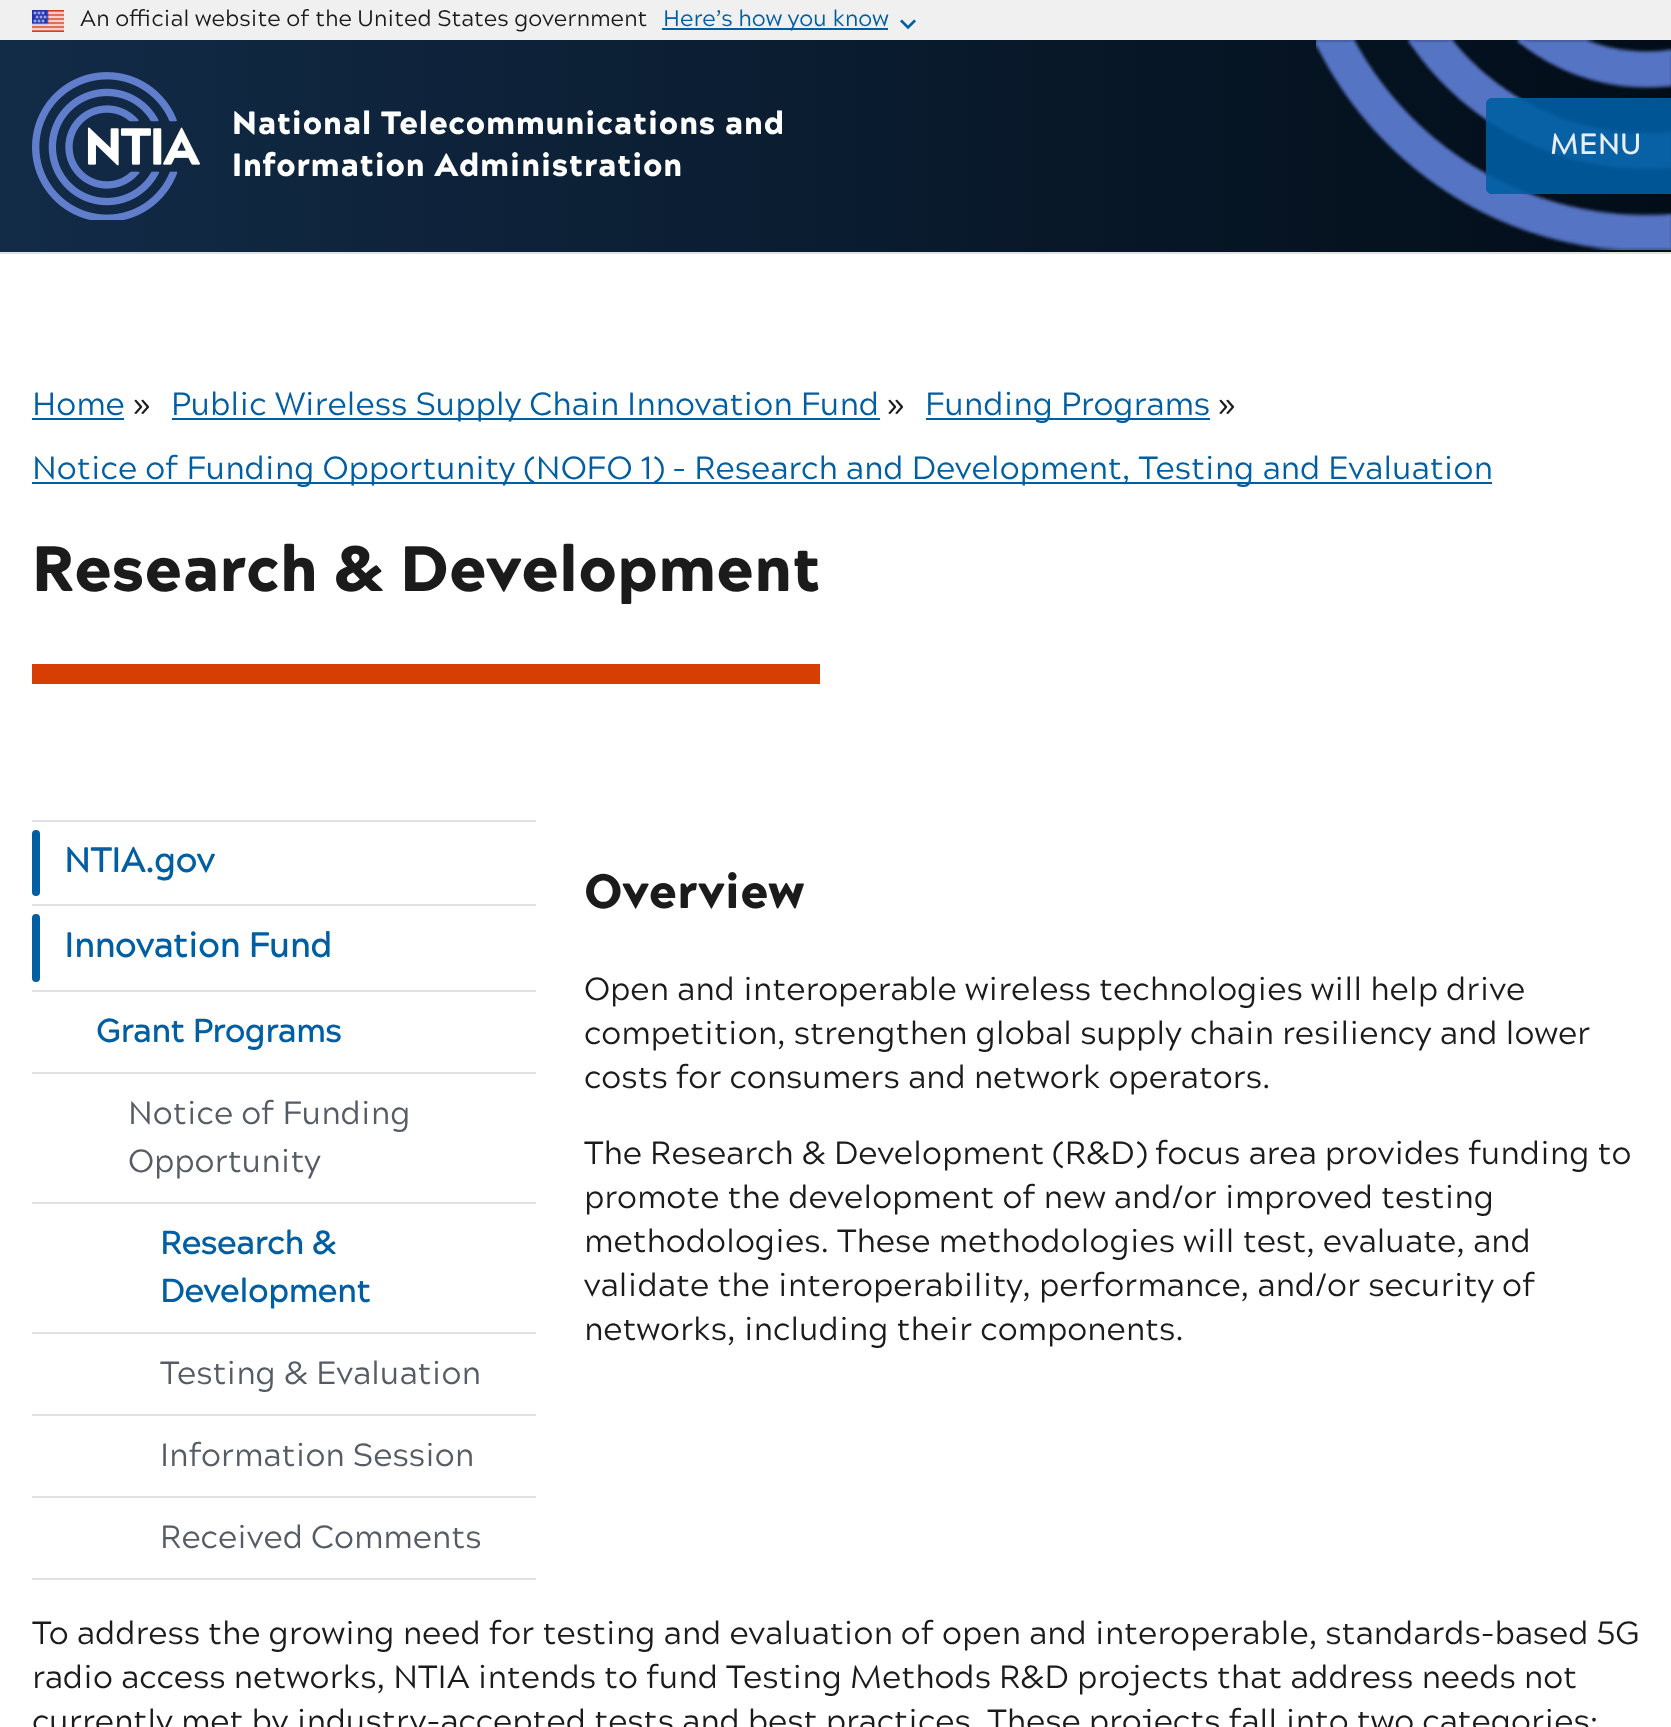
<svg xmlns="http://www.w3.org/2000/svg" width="1671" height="1727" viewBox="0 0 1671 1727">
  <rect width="100%" height="100%" fill="#ffffff"/>
  <rect x="0" y="0" width="1671" height="40" fill="#f0f0f0"/>
  <image x="32" y="10" width="32" height="22" href="img1.png"/>
  <text x="80" y="26" font-family="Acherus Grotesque" font-size="22.4" fill="#1b1b1b">An official website of the United States government</text>
  <rect x="662" y="28" width="226" height="2" fill="#005ea2"/>
  <text x="663" y="26" font-family="Acherus Grotesque" font-size="22.4" fill="#005ea2">Here’s how you know</text>
  <image x="900" y="19" width="16" height="11" href="img2.png"/>
  <image x="0" y="40" width="1671" height="212" href="img3.png"/>
  <rect x="0" y="252" width="1671" height="2" fill="#dfe1e2"/>
  <image x="32" y="72" width="168" height="148" href="img4.png"/>
  <text x="232" y="134" font-family="Acherus Grotesque" font-size="32" font-weight="900" letter-spacing="0.65" fill="#ffffff">National Telecommunications and</text>
  <text x="232" y="176" font-family="Acherus Grotesque" font-size="32" font-weight="900" letter-spacing="0.65" fill="#ffffff">Information Administration</text>
  <path d="M1492 98H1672V194H1492C1488.5 194 1486 191.5 1486 188V104C1486 100.5 1488.5 98 1492 98Z" fill="#005ea2" fill-opacity="0.9"/>
  <text x="1550" y="154" font-family="Acherus Grotesque" font-size="28" font-weight="bold" letter-spacing="1" fill="#e6eff6">MENU</text>
  <text x="32" y="415" font-family="Acherus Grotesque" font-size="32" fill="#005ea2">Home</text>
  <rect x="32" y="418" width="92" height="2" fill="#005ea2"/>
  <text x="133" y="415" font-family="Acherus Grotesque" font-size="32" fill="#1b1b1b">»</text>
  <rect x="172" y="418" width="708" height="2" fill="#005ea2"/>
  <text x="171" y="415" font-family="Acherus Grotesque" font-size="32" fill="#005ea2">Public Wireless Supply Chain Innovation Fund</text>
  <text x="887" y="415" font-family="Acherus Grotesque" font-size="32" fill="#1b1b1b">»</text>
  <rect x="926" y="418" width="284" height="2" fill="#005ea2"/>
  <text x="925" y="415" font-family="Acherus Grotesque" font-size="32" fill="#005ea2">Funding Programs</text>
  <text x="1218" y="415" font-family="Acherus Grotesque" font-size="32" fill="#1b1b1b">»</text>
  <rect x="32" y="482" width="1460" height="2" fill="#005ea2"/>
  <text x="32" y="479" font-family="Acherus Grotesque" font-size="32" fill="#005ea2">Notice of Funding Opportunity (NOFO 1) - Research and Development, Testing and Evaluation</text>
  <rect x="32" y="664" width="788" height="20" fill="#d63e04"/>
  <text x="32" y="591" font-family="Acherus Grotesque" font-size="64" font-weight="900" fill="#1b1b1b">Research &amp; Development</text>
  <rect x="32" y="1578" width="504" height="2" fill="#dfe1e2"/>
  <rect x="32" y="820" width="504" height="2" fill="#dfe1e2"/>
  <rect x="32" y="830" width="8" height="66" rx="4" fill="#005ea2"/>
  <text x="64" y="872" font-family="Acherus Grotesque" font-size="34" font-weight="bold" fill="#005ea2">NTIA.gov</text>
  <rect x="32" y="904" width="504" height="2" fill="#dfe1e2"/>
  <rect x="32" y="914" width="8" height="68" rx="4" fill="#005ea2"/>
  <text x="64" y="957" font-family="Acherus Grotesque" font-size="34" font-weight="bold" fill="#005ea2">Innovation Fund</text>
  <rect x="32" y="990" width="504" height="2" fill="#dfe1e2"/>
  <text x="96" y="1042" font-family="Acherus Grotesque" font-size="32" font-weight="bold" fill="#005ea2">Grant Programs</text>
  <rect x="32" y="1072" width="504" height="2" fill="#dfe1e2"/>
  <text x="128" y="1124" font-family="Acherus Grotesque" font-size="32" fill="#565c65">Notice of Funding</text>
  <text x="128" y="1172" font-family="Acherus Grotesque" font-size="32" fill="#565c65">Opportunity</text>
  <rect x="32" y="1202" width="504" height="2" fill="#dfe1e2"/>
  <text x="160" y="1254" font-family="Acherus Grotesque" font-size="32" font-weight="bold" fill="#005ea2">Research &amp;</text>
  <text x="160" y="1302" font-family="Acherus Grotesque" font-size="32" font-weight="bold" fill="#005ea2">Development</text>
  <rect x="32" y="1332" width="504" height="2" fill="#dfe1e2"/>
  <text x="160" y="1384" font-family="Acherus Grotesque" font-size="32" fill="#565c65">Testing &amp; Evaluation</text>
  <rect x="32" y="1414" width="504" height="2" fill="#dfe1e2"/>
  <text x="160" y="1466" font-family="Acherus Grotesque" font-size="32" fill="#565c65">Information Session</text>
  <rect x="32" y="1496" width="504" height="2" fill="#dfe1e2"/>
  <text x="160" y="1548" font-family="Acherus Grotesque" font-size="32" fill="#565c65">Received Comments</text>
  <text x="584" y="908" font-family="Acherus Grotesque" font-size="48" font-weight="900" fill="#1b1b1b">Overview</text>
  <text x="584" y="1000" font-family="Acherus Grotesque" font-size="32" fill="#1b1b1b">Open and interoperable wireless technologies will help drive</text>
  <text x="584" y="1044" font-family="Acherus Grotesque" font-size="32" fill="#1b1b1b">competition, strengthen global supply chain resiliency and lower</text>
  <text x="584" y="1088" font-family="Acherus Grotesque" font-size="32" fill="#1b1b1b">costs for consumers and network operators.</text>
  <text x="584" y="1164" font-family="Acherus Grotesque" font-size="32" fill="#1b1b1b">The Research &amp; Development (R&amp;D) focus area provides funding to</text>
  <text x="584" y="1208" font-family="Acherus Grotesque" font-size="32" fill="#1b1b1b">promote the development of new and/or improved testing</text>
  <text x="584" y="1252" font-family="Acherus Grotesque" font-size="32" fill="#1b1b1b">methodologies. These methodologies will test, evaluate, and</text>
  <text x="584" y="1296" font-family="Acherus Grotesque" font-size="32" fill="#1b1b1b">validate the interoperability, performance, and/or security of</text>
  <text x="584" y="1340" font-family="Acherus Grotesque" font-size="32" fill="#1b1b1b">networks, including their components.</text>
  <text x="32" y="1644" font-family="Acherus Grotesque" font-size="32" fill="#1b1b1b">To address the growing need for testing and evaluation of open and interoperable, standards-based 5G</text>
  <text x="32" y="1688" font-family="Acherus Grotesque" font-size="32" fill="#1b1b1b">radio access networks, NTIA intends to fund Testing Methods R&amp;D projects that address needs not</text>
  <text x="32" y="1732" font-family="Acherus Grotesque" font-size="32" fill="#1b1b1b">currently met by industry-accepted tests and best practices. These projects fall into two categories:</text>
</svg>
